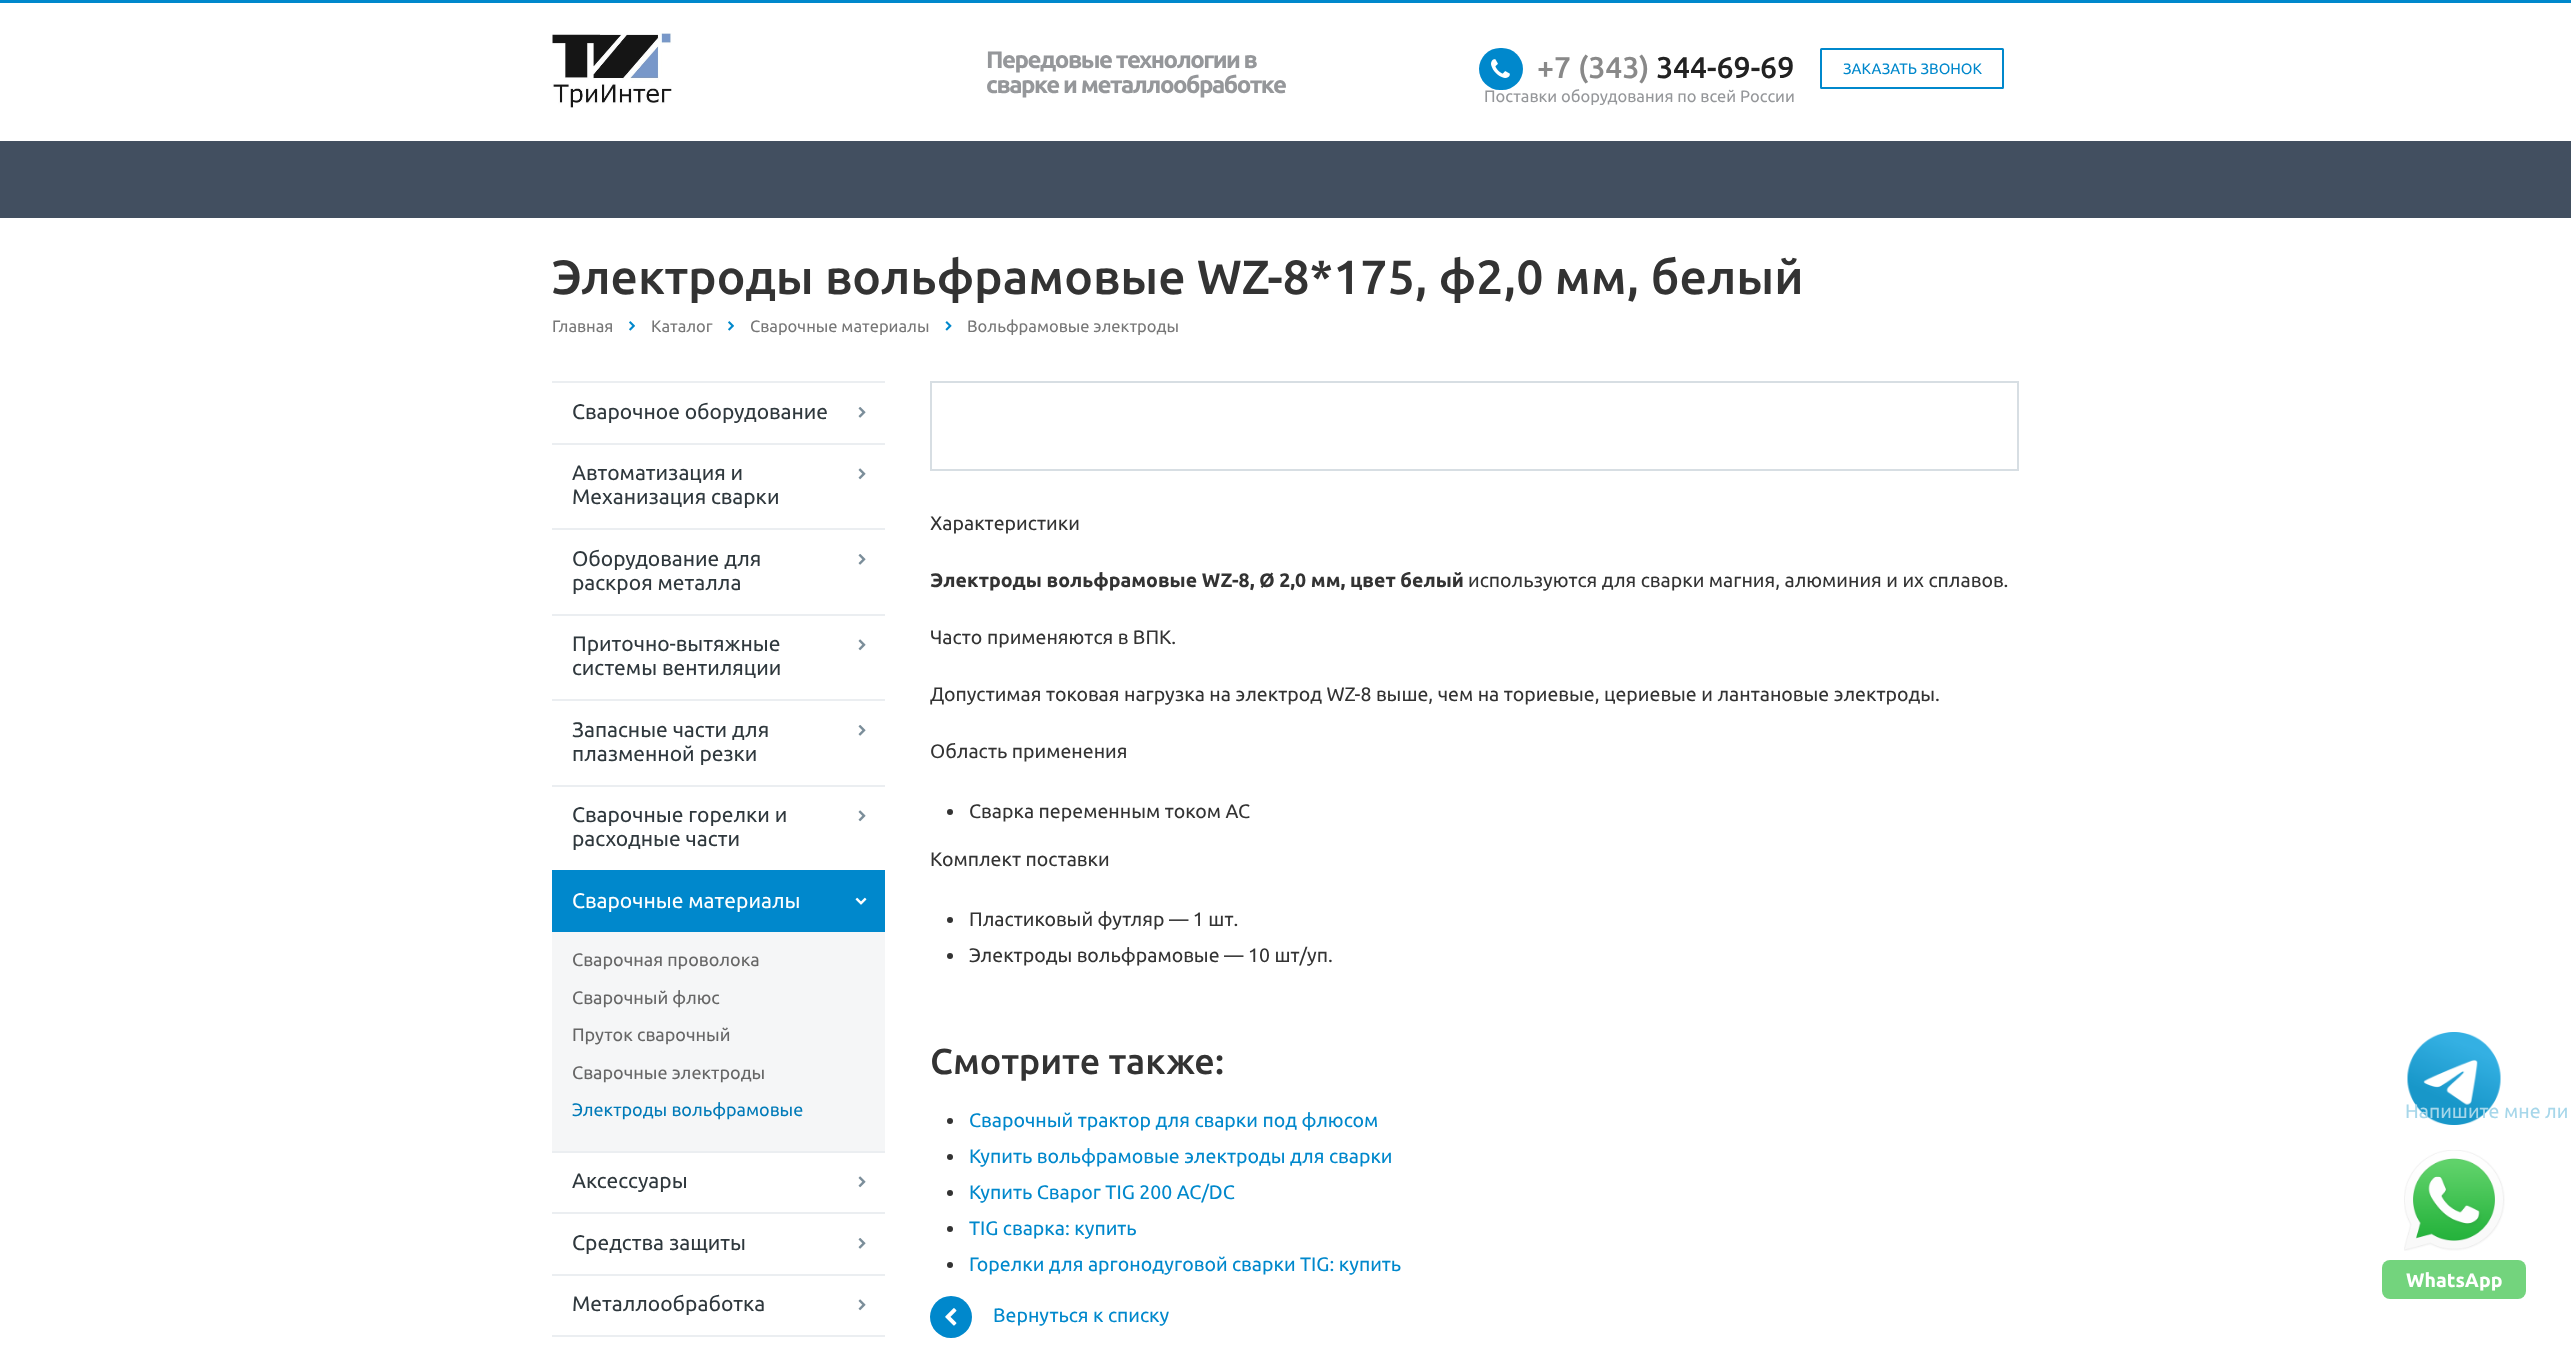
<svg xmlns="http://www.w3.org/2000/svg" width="2571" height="1372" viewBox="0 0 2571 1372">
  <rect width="100%" height="100%" fill="#ffffff"/>
  <rect x="0" y="0" width="2571" height="3" fill="#0088cc"/>
  <image x="552" y="33" width="120" height="75" href="img1.png"/>
  <text x="986" y="68" font-family="Ubuntu" font-size="24" font-weight="bold" letter-spacing="-1.5" fill="#95979a">Передовые технологии в</text>
  <text x="986" y="93" font-family="Ubuntu" font-size="24" font-weight="bold" letter-spacing="-1.5" fill="#95979a">сварке и металлообработке</text>
  <text x="1484" y="102" font-family="Ubuntu" font-size="16.5" fill="#95979a">Поставки оборудования по всей России</text>
  <rect x="1479" y="48" width="44" height="42" rx="21" fill="#0088cc"/>
  <image x="1491" y="59" width="19" height="19" href="img2.png"/>
  <text x="1537" y="78" font-family="Ubuntu" font-size="30" font-weight="500" fill="#898989">+7 (343)</text>
  <text x="1656" y="78" font-family="Ubuntu" font-size="30" font-weight="500" fill="#222222">344-69-69</text>
  <rect x="1821" y="49" width="182" height="39" rx="0.5" fill="none" stroke="#0088cc" stroke-width="2"/>
  <text x="1843" y="74" font-family="Ubuntu" font-size="15" fill="#0088cc">ЗАКАЗАТЬ ЗВОНОК</text>
  <rect x="0" y="141" width="2571" height="77" fill="#424f60"/>
  <text x="552" y="294" font-family="Ubuntu" font-size="48" font-weight="500" fill="#333333">Электроды вольфрамовые WZ-8*175, ф2,0 мм, белый</text>
  <text x="552" y="332" font-family="Ubuntu" font-size="16.5" fill="#777777">Главная</text>
  <image x="629" y="321" width="6" height="10" href="img3.png"/>
  <text x="651" y="332" font-family="Ubuntu" font-size="16.5" fill="#777777">Каталог</text>
  <image x="728" y="321" width="6" height="10" href="img3.png"/>
  <text x="750" y="332" font-family="Ubuntu" font-size="16.5" fill="#777777">Сварочные материалы</text>
  <image x="945" y="321" width="7" height="10" href="img4.png"/>
  <text x="967" y="332" font-family="Ubuntu" font-size="16.5" fill="#777777">Вольфрамовые электроды</text>
  <rect x="552" y="1335" width="333" height="2" fill="#ebeef1"/>
  <rect x="552" y="381" width="333" height="2" fill="#ebeef1"/>
  <text x="572" y="419" font-family="Ubuntu" font-size="21" fill="#2f383d">Сварочное оборудование</text>
  <image x="858" y="407" width="8" height="11" href="img5.png"/>
  <rect x="552" y="443" width="333" height="2" fill="#ebeef1"/>
  <text x="572" y="480" font-family="Ubuntu" font-size="21" fill="#2f383d">Автоматизация и</text>
  <image x="858" y="468" width="8" height="12" href="img6.png"/>
  <text x="572" y="504" font-family="Ubuntu" font-size="21" fill="#2f383d">Механизация сварки</text>
  <rect x="552" y="528" width="333" height="2" fill="#ebeef1"/>
  <text x="572" y="566" font-family="Ubuntu" font-size="21" fill="#2f383d">Оборудование для</text>
  <image x="858" y="554" width="8" height="11" href="img5.png"/>
  <text x="572" y="590" font-family="Ubuntu" font-size="21" fill="#2f383d">раскроя металла</text>
  <rect x="552" y="614" width="333" height="2" fill="#ebeef1"/>
  <text x="572" y="651" font-family="Ubuntu" font-size="21" fill="#2f383d">Приточно-вытяжные</text>
  <image x="858" y="639" width="8" height="12" href="img6.png"/>
  <text x="572" y="675" font-family="Ubuntu" font-size="21" fill="#2f383d">системы вентиляции</text>
  <rect x="552" y="699" width="333" height="2" fill="#ebeef1"/>
  <text x="572" y="737" font-family="Ubuntu" font-size="21" fill="#2f383d">Запасные части для</text>
  <image x="858" y="725" width="8" height="11" href="img5.png"/>
  <text x="572" y="761" font-family="Ubuntu" font-size="21" fill="#2f383d">плазменной резки</text>
  <rect x="552" y="785" width="333" height="2" fill="#ebeef1"/>
  <text x="572" y="822" font-family="Ubuntu" font-size="21" fill="#2f383d">Сварочные горелки и</text>
  <image x="858" y="810" width="8" height="12" href="img6.png"/>
  <text x="572" y="846" font-family="Ubuntu" font-size="21" fill="#2f383d">расходные части</text>
  <rect x="552" y="870" width="333" height="62" fill="#0088cc"/>
  <text x="572" y="908" font-family="Ubuntu" font-size="21" fill="#ffffff">Сварочные материалы</text>
  <image x="855" y="897" width="12" height="8" href="img7.png"/>
  <rect x="552" y="932" width="333" height="219" fill="#f5f6f7"/>
  <text x="572" y="966" font-family="Ubuntu" font-size="18" fill="#666666">Сварочная проволока</text>
  <text x="572" y="1004" font-family="Ubuntu" font-size="18" fill="#666666">Сварочный флюс</text>
  <text x="572" y="1041" font-family="Ubuntu" font-size="18" fill="#666666">Пруток сварочный</text>
  <text x="572" y="1079" font-family="Ubuntu" font-size="18" fill="#666666">Сварочные электроды</text>
  <text x="572" y="1116" font-family="Ubuntu" font-size="18" fill="#007ab8">Электроды вольфрамовые</text>
  <rect x="552" y="1151" width="333" height="2" fill="#ebeef1"/>
  <text x="572" y="1188" font-family="Ubuntu" font-size="21" fill="#2f383d">Аксессуары</text>
  <image x="858" y="1176" width="8" height="12" href="img6.png"/>
  <rect x="552" y="1212" width="333" height="2" fill="#ebeef1"/>
  <text x="572" y="1250" font-family="Ubuntu" font-size="21" fill="#2f383d">Средства защиты</text>
  <image x="858" y="1238" width="8" height="11" href="img5.png"/>
  <rect x="552" y="1274" width="333" height="2" fill="#ebeef1"/>
  <text x="572" y="1311" font-family="Ubuntu" font-size="21" fill="#2f383d">Металлообработка</text>
  <image x="858" y="1299" width="8" height="12" href="img6.png"/>
  <rect x="931" y="382" width="1087" height="88" fill="none" stroke="#d7dee3" stroke-width="2"/>
  <text x="930" y="530" font-family="Ubuntu" font-size="19.5" fill="#333333">Характеристики</text>
  <text x="930" y="587" font-family="Ubuntu" font-size="19.5" font-weight="bold" fill="#333333">Электроды вольфрамовые WZ-8, Ø 2,0 мм, цвет белый</text>
  <text x="1468" y="587" font-family="Ubuntu" font-size="19.5" fill="#333333">используются для сварки магния, алюминия и их сплавов.</text>
  <text x="930" y="644" font-family="Ubuntu" font-size="19.5" fill="#333333">Часто применяются в ВПК.</text>
  <text x="930" y="701" font-family="Ubuntu" font-size="19.5" fill="#333333">Допустимая токовая нагрузка на электрод WZ-8 выше, чем на ториевые, цериевые и лантановые электроды.</text>
  <text x="930" y="758" font-family="Ubuntu" font-size="19.5" fill="#333333">Область применения</text>
  <circle cx="950" cy="812" r="3" fill="#333333"/>
  <text x="969" y="818" font-family="Ubuntu" font-size="19.5" fill="#333333">Сварка переменным током AC</text>
  <text x="930" y="866" font-family="Ubuntu" font-size="19.5" fill="#333333">Комплект поставки</text>
  <circle cx="950" cy="920" r="3" fill="#333333"/>
  <text x="969" y="926" font-family="Ubuntu" font-size="19.5" fill="#333333">Пластиковый футляр — 1 шт.</text>
  <circle cx="950" cy="956" r="3" fill="#333333"/>
  <text x="969" y="962" font-family="Ubuntu" font-size="19.5" fill="#333333">Электроды вольфрамовые — 10 шт/уп.</text>
  <text x="930" y="1074" font-family="Ubuntu" font-size="36" font-weight="500" fill="#333333">Смотрите также:</text>
  <circle cx="950" cy="1121" r="3" fill="#333333"/>
  <text x="969" y="1127" font-family="Ubuntu" font-size="19.5" fill="#0088cc">Сварочный трактор для сварки под флюсом</text>
  <circle cx="950" cy="1157" r="3" fill="#333333"/>
  <text x="969" y="1163" font-family="Ubuntu" font-size="19.5" fill="#0088cc">Купить вольфрамовые электроды для сварки</text>
  <circle cx="950" cy="1193" r="3" fill="#333333"/>
  <text x="969" y="1199" font-family="Ubuntu" font-size="19.5" fill="#0088cc">Купить Сварог TIG 200 AC/DC</text>
  <circle cx="950" cy="1229" r="3" fill="#333333"/>
  <text x="969" y="1235" font-family="Ubuntu" font-size="19.5" fill="#0088cc">TIG сварка: купить</text>
  <circle cx="950" cy="1265" r="3" fill="#333333"/>
  <text x="969" y="1271" font-family="Ubuntu" font-size="19.5" fill="#0088cc">Горелки для аргонодуговой сварки TIG: купить</text>
  <circle cx="951" cy="1317" r="21" fill="#0088cc"/>
  <image x="945" y="1308" width="12" height="18" href="img8.png"/>
  <text x="993" y="1322" font-family="Ubuntu" font-size="19.5" fill="#0088cc">Вернуться к списку</text>
  <image x="2407" y="1032" width="94" height="93" href="img9.png"/>
  <text x="2405" y="1118" font-family="Ubuntu" font-size="19.5" fill="#a7d7ea">Напишите мне ли</text>
  <image x="2404" y="1150" width="101" height="101" href="img10.png"/>
  <rect x="2382" y="1260" width="144" height="39" rx="8" fill="#73d47d"/>
  <text x="2406" y="1287" font-family="Ubuntu" font-size="19.5" font-weight="bold" fill="#ffffff">WhatsApp</text>
</svg>
